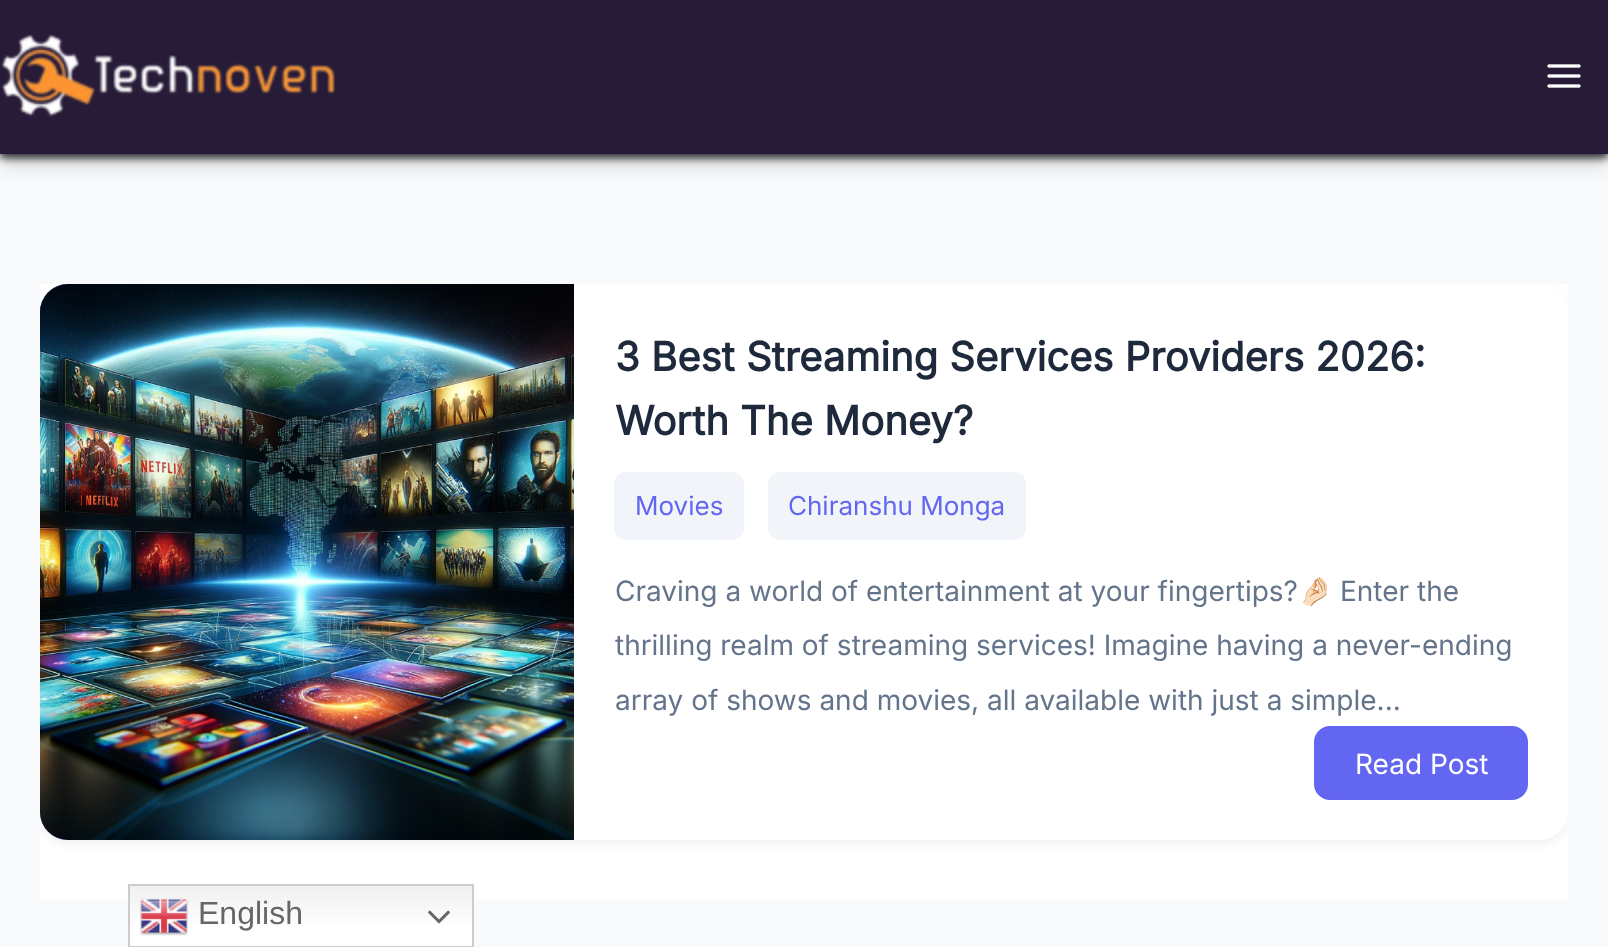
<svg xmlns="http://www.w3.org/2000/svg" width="1608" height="947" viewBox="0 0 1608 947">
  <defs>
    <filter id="blur1" x="-50%" y="-200%" width="200%" height="500%"><feGaussianBlur stdDeviation="10"/></filter>
    <filter id="blur2" x="-50%" y="-200%" width="200%" height="500%"><feGaussianBlur stdDeviation="4"/></filter>
    <clipPath id="clip1"><rect x="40" y="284" width="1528" height="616"/></clipPath>
    <filter id="blur3" x="-50%" y="-200%" width="200%" height="500%"><feGaussianBlur stdDeviation="5"/></filter>
    <linearGradient id="g1" gradientUnits="userSpaceOnUse" x1="34" y1="290" x2="580" y2="835"><stop offset="0" stop-color="#667eea"/><stop offset="1" stop-color="#764ba2"/></linearGradient>
    <linearGradient id="g2" gradientUnits="userSpaceOnUse" x1="301" y1="884" x2="301" y2="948"><stop offset="0" stop-color="#efefef"/><stop offset="0.7" stop-color="#ffffff"/></linearGradient>
  </defs>
  <rect width="100%" height="100%" fill="#f9fafb"/>
  <rect x="0" y="12" width="1608" height="154" fill="#000000" fill-opacity="0.13" filter="url(#blur1)"/>
  <rect x="0" y="4" width="1608" height="154" fill="#000000" fill-opacity="0.83" filter="url(#blur2)"/>
  <rect x="0" y="0" width="1608" height="154" fill="#271b38"/>
  <image x="1" y="34" width="335" height="83" href="img1.png"/>
  <image x="1547" y="64" width="34" height="24" href="img2.png"/>
  <rect x="40" y="284" width="1528" height="616" fill="#ffffff"/>
  <g clip-path="url(#clip1)">
    <rect x="40" y="288" width="1528" height="556" rx="28" fill="#000000" fill-opacity="0.06" filter="url(#blur3)"/>
  </g>
  <rect x="40" y="284" width="1528" height="556" rx="28" fill="#ffffff"/>
  <path d="M68 284H574V840H68C52.5 840 40 827.5 40 812V312C40 296.5 52.5 284 68 284Z" fill="url(#g1)"/>
  <image x="40" y="284" width="534" height="556" href="img3.png"/>
  <text x="615" y="371" font-family="Inter" font-size="40" font-weight="bold" fill="#1e293b">3 Best Streaming Services Providers 2026:</text>
  <text x="615" y="435" font-family="Inter" font-size="40" font-weight="bold" fill="#1e293b">Worth The Money?</text>
  <rect x="614" y="472" width="130" height="68" rx="12" fill="#f1f5f9"/>
  <text x="635" y="515" font-family="Inter" font-size="26" fill="#6366f1">Movies</text>
  <rect x="768" y="472" width="258" height="68" rx="12" fill="#f1f5f9"/>
  <text x="788" y="515" font-family="Inter" font-size="26" fill="#6366f1">Chiranshu Monga</text>
  <text x="615" y="601" font-family="Inter" font-size="28" fill="#64748b">Craving a world of entertainment at your fingertips?</text>
  <text x="1298" y="601" font-family="Noto Color Emoji" font-size="28" fill="#64748b">🤌🏻</text>
  <text x="1340" y="601" font-family="Inter" font-size="28" fill="#64748b">Enter the</text>
  <text x="615" y="655" font-family="Inter" font-size="28" fill="#64748b">thrilling realm of streaming services! Imagine having a never-ending</text>
  <text x="615" y="710" font-family="Inter" font-size="28" fill="#64748b">array of shows and movies, all available with just a simple...</text>
  <rect x="1316" y="728" width="210" height="70" rx="14" fill="#6366f1" stroke="#6366f1" stroke-width="4"/>
  <text x="1355" y="774" font-family="Inter" font-size="28" fill="#ffffff">Read Post</text>
  <rect x="130" y="886" width="342" height="60" fill="url(#g2)"/>
  <rect x="129" y="885" width="344" height="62" fill="none" stroke="#cccccc" stroke-width="2"/>
  <image x="140" y="898" width="48" height="38" href="img4.png"/>
  <text x="198" y="924" font-family="Liberation Sans" font-size="32" fill="#666666">English</text>
  <image x="428" y="910" width="22" height="14" href="img5.png"/>
</svg>
